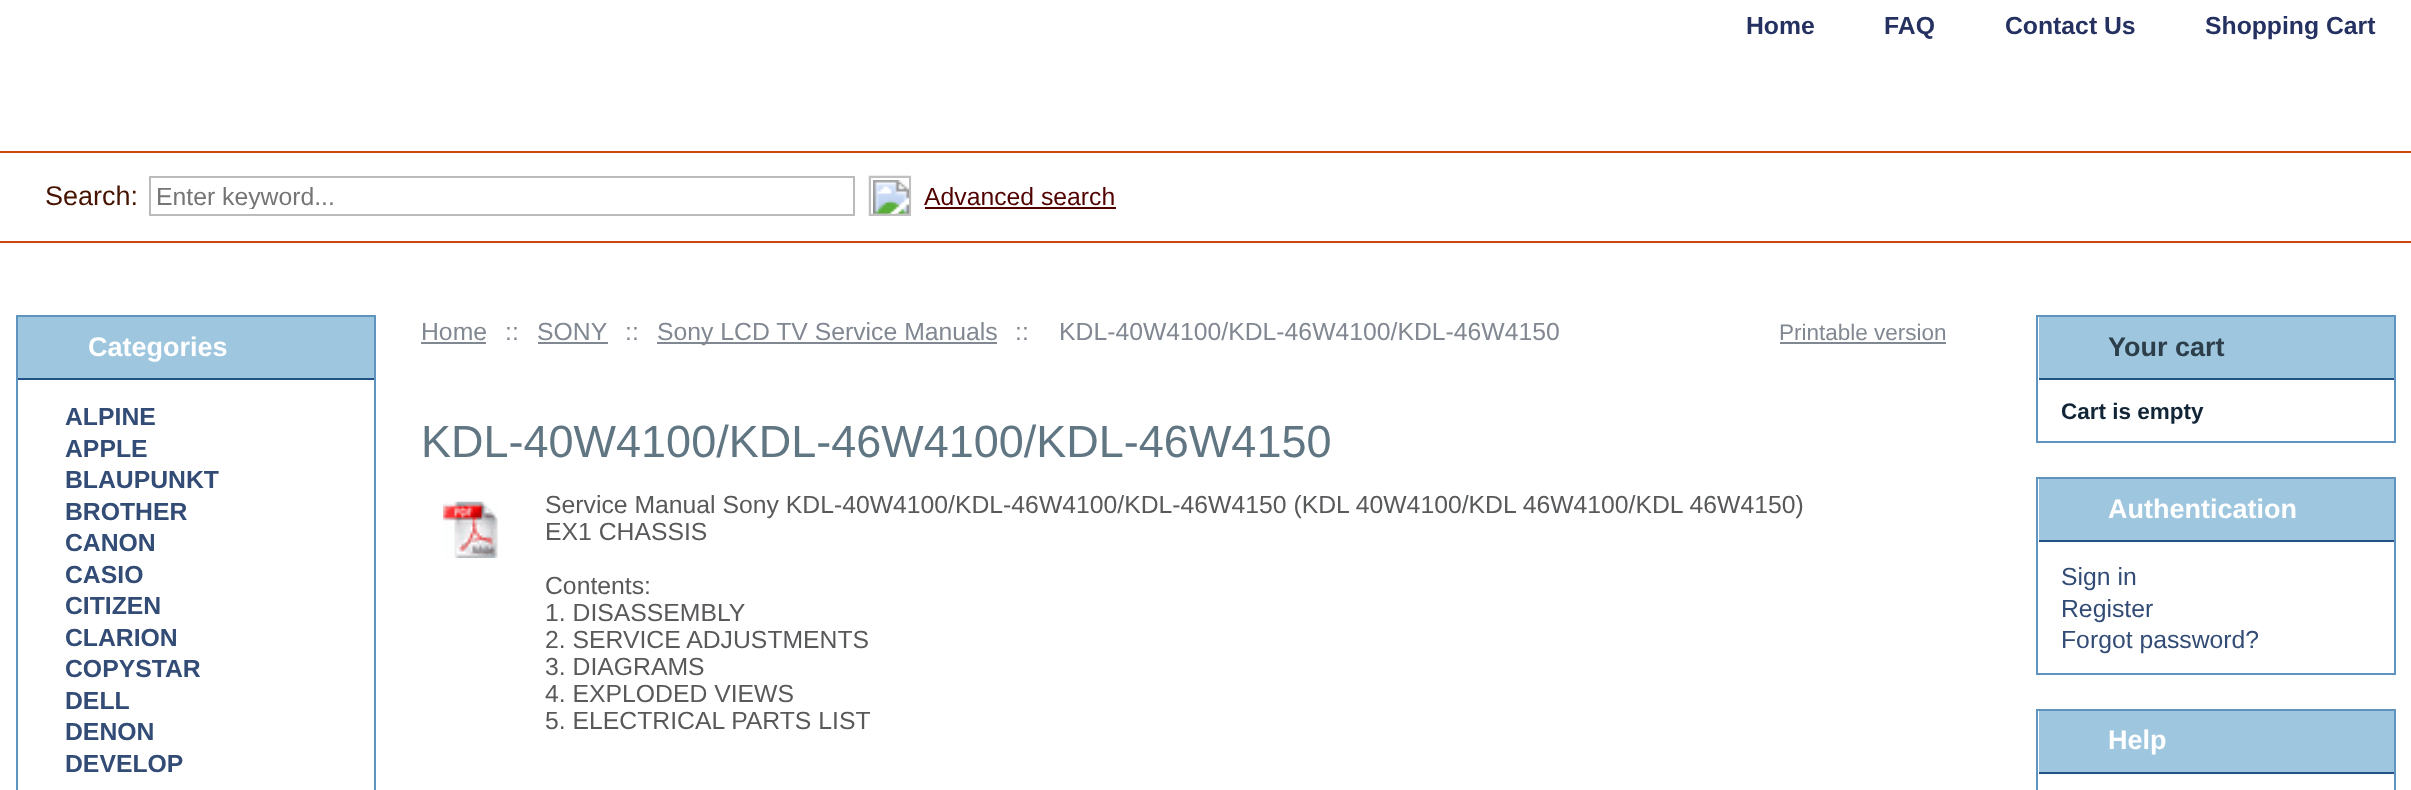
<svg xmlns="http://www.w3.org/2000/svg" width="2411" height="790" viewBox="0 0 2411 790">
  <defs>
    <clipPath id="clip1"><rect x="155" y="182" width="693" height="27"/></clipPath>
  </defs>
  <rect width="100%" height="100%" fill="#ffffff"/>
  <text x="1746" y="34" font-family="Liberation Sans" font-size="24.75" font-weight="bold" fill="#253161">Home</text>
  <text x="1884" y="34" font-family="Liberation Sans" font-size="24.75" font-weight="bold" fill="#253161">FAQ</text>
  <text x="2005" y="34" font-family="Liberation Sans" font-size="24.75" font-weight="bold" fill="#253161">Contact Us</text>
  <text x="2205" y="34" font-family="Liberation Sans" font-size="24.75" font-weight="bold" fill="#253161">Shopping Cart</text>
  <rect x="0" y="151" width="2411" height="2" fill="#cb480c"/>
  <rect x="0" y="241" width="2411" height="2" fill="#cb480c"/>
  <text x="45" y="205" font-family="Liberation Sans" font-size="27" fill="#451300">Search:</text>
  <rect x="150" y="177" width="704" height="38" fill="none" stroke="#bbbbbb" stroke-width="2"/>
  <g clip-path="url(#clip1)">
    <text x="156" y="205" font-family="Liberation Sans" font-size="24.75" fill="#757575">Enter keyword...</text>
  </g>
  <image x="868" y="175" width="44" height="41" href="img1.png"/>
  <rect x="870" y="177" width="40" height="38" fill="none" stroke="#c0c0c0" stroke-width="2"/>
  <text x="924" y="205" font-family="Liberation Sans" font-size="24.75" fill="#510000">Advanced search</text>
  <rect x="925" y="207" width="191" height="2" fill="#510000"/>
  <rect x="17" y="316" width="358" height="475" fill="none" stroke="#5f94c0" stroke-width="2"/>
  <rect x="18" y="317" width="356" height="61" fill="#9ec6de"/>
  <rect x="18" y="378" width="356" height="2" fill="#215485"/>
  <text x="88" y="356" font-family="Liberation Sans" font-size="27" font-weight="bold" fill="#ffffff">Categories</text>
  <text x="65" y="425" font-family="Liberation Sans" font-size="24.75" font-weight="bold" fill="#324c76">ALPINE</text>
  <text x="65" y="457" font-family="Liberation Sans" font-size="24.75" font-weight="bold" fill="#324c76">APPLE</text>
  <text x="65" y="488" font-family="Liberation Sans" font-size="24.75" font-weight="bold" fill="#324c76">BLAUPUNKT</text>
  <text x="65" y="520" font-family="Liberation Sans" font-size="24.75" font-weight="bold" fill="#324c76">BROTHER</text>
  <text x="65" y="551" font-family="Liberation Sans" font-size="24.75" font-weight="bold" fill="#324c76">CANON</text>
  <text x="65" y="583" font-family="Liberation Sans" font-size="24.75" font-weight="bold" fill="#324c76">CASIO</text>
  <text x="65" y="614" font-family="Liberation Sans" font-size="24.75" font-weight="bold" fill="#324c76">CITIZEN</text>
  <text x="65" y="646" font-family="Liberation Sans" font-size="24.75" font-weight="bold" fill="#324c76">CLARION</text>
  <text x="65" y="677" font-family="Liberation Sans" font-size="24.75" font-weight="bold" fill="#324c76">COPYSTAR</text>
  <text x="65" y="709" font-family="Liberation Sans" font-size="24.75" font-weight="bold" fill="#324c76">DELL</text>
  <text x="65" y="740" font-family="Liberation Sans" font-size="24.75" font-weight="bold" fill="#324c76">DENON</text>
  <text x="65" y="772" font-family="Liberation Sans" font-size="24.75" font-weight="bold" fill="#324c76">DEVELOP</text>
  <text x="421" y="340" font-family="Liberation Sans" font-size="24.75" fill="#818891">Home</text>
  <rect x="421" y="342" width="65" height="2" fill="#818891"/>
  <text x="505" y="340" font-family="Liberation Sans" font-size="24.75" fill="#818891">::</text>
  <text x="537" y="340" font-family="Liberation Sans" font-size="24.75" fill="#818891">SONY</text>
  <rect x="538" y="342" width="70" height="2" fill="#818891"/>
  <text x="625" y="340" font-family="Liberation Sans" font-size="24.75" fill="#818891">::</text>
  <rect x="657" y="342" width="340" height="2" fill="#818891"/>
  <text x="657" y="340" font-family="Liberation Sans" font-size="24.75" fill="#818891">Sony LCD TV Service Manuals</text>
  <text x="1015" y="340" font-family="Liberation Sans" font-size="24.75" fill="#818891">::</text>
  <text x="1059" y="340" font-family="Liberation Sans" font-size="24.75" fill="#818891">KDL-40W4100/KDL-46W4100/KDL-46W4150</text>
  <text x="1779" y="340" font-family="Liberation Sans" font-size="22.5" fill="#818891">Printable version</text>
  <rect x="1780" y="342" width="166" height="2" fill="#818891"/>
  <text x="421" y="457" font-family="Liberation Sans" font-size="45" fill="#617683">KDL-40W4100/KDL-46W4100/KDL-46W4150</text>
  <image x="443" y="501" width="55" height="57" href="img2.png"/>
  <text x="545" y="513" font-family="Liberation Sans" font-size="24.75" fill="#58595b">Service Manual Sony KDL-40W4100/KDL-46W4100/KDL-46W4150 (KDL 40W4100/KDL 46W4100/KDL 46W4150)</text>
  <text x="545" y="540" font-family="Liberation Sans" font-size="24.75" fill="#58595b">EX1 CHASSIS</text>
  <text x="545" y="594" font-family="Liberation Sans" font-size="24.75" fill="#58595b">Contents:</text>
  <text x="545" y="621" font-family="Liberation Sans" font-size="24.75" fill="#58595b">1. DISASSEMBLY</text>
  <text x="545" y="648" font-family="Liberation Sans" font-size="24.75" fill="#58595b">2. SERVICE ADJUSTMENTS</text>
  <text x="545" y="675" font-family="Liberation Sans" font-size="24.75" fill="#58595b">3. DIAGRAMS</text>
  <text x="545" y="702" font-family="Liberation Sans" font-size="24.75" fill="#58595b">4. EXPLODED VIEWS</text>
  <text x="545" y="729" font-family="Liberation Sans" font-size="24.75" fill="#58595b">5. ELECTRICAL PARTS LIST</text>
  <rect x="2037" y="316" width="358" height="126" fill="none" stroke="#5f94c0" stroke-width="2"/>
  <rect x="2039" y="317" width="355" height="61" fill="#9ec6de"/>
  <rect x="2039" y="378" width="355" height="2" fill="#215485"/>
  <text x="2108" y="356" font-family="Liberation Sans" font-size="27" font-weight="bold" fill="#2c3e49">Your cart</text>
  <text x="2061" y="419" font-family="Liberation Sans" font-size="22.5" font-weight="bold" fill="#112536">Cart is empty</text>
  <rect x="2037" y="478" width="358" height="196" fill="none" stroke="#5f94c0" stroke-width="2"/>
  <rect x="2039" y="479" width="355" height="61" fill="#9ec6de"/>
  <rect x="2039" y="540" width="355" height="2" fill="#215485"/>
  <text x="2108" y="518" font-family="Liberation Sans" font-size="27" font-weight="bold" fill="#ffffff">Authentication</text>
  <text x="2061" y="585" font-family="Liberation Sans" font-size="24.75" fill="#324c76">Sign in</text>
  <text x="2061" y="617" font-family="Liberation Sans" font-size="24.75" fill="#324c76">Register</text>
  <text x="2061" y="648" font-family="Liberation Sans" font-size="24.75" fill="#324c76">Forgot password?</text>
  <rect x="2037" y="710" width="358" height="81" fill="none" stroke="#5f94c0" stroke-width="2"/>
  <rect x="2039" y="711" width="355" height="61" fill="#9ec6de"/>
  <rect x="2039" y="772" width="355" height="2" fill="#215485"/>
  <text x="2108" y="749" font-family="Liberation Sans" font-size="27" font-weight="bold" fill="#ffffff">Help</text>
</svg>
